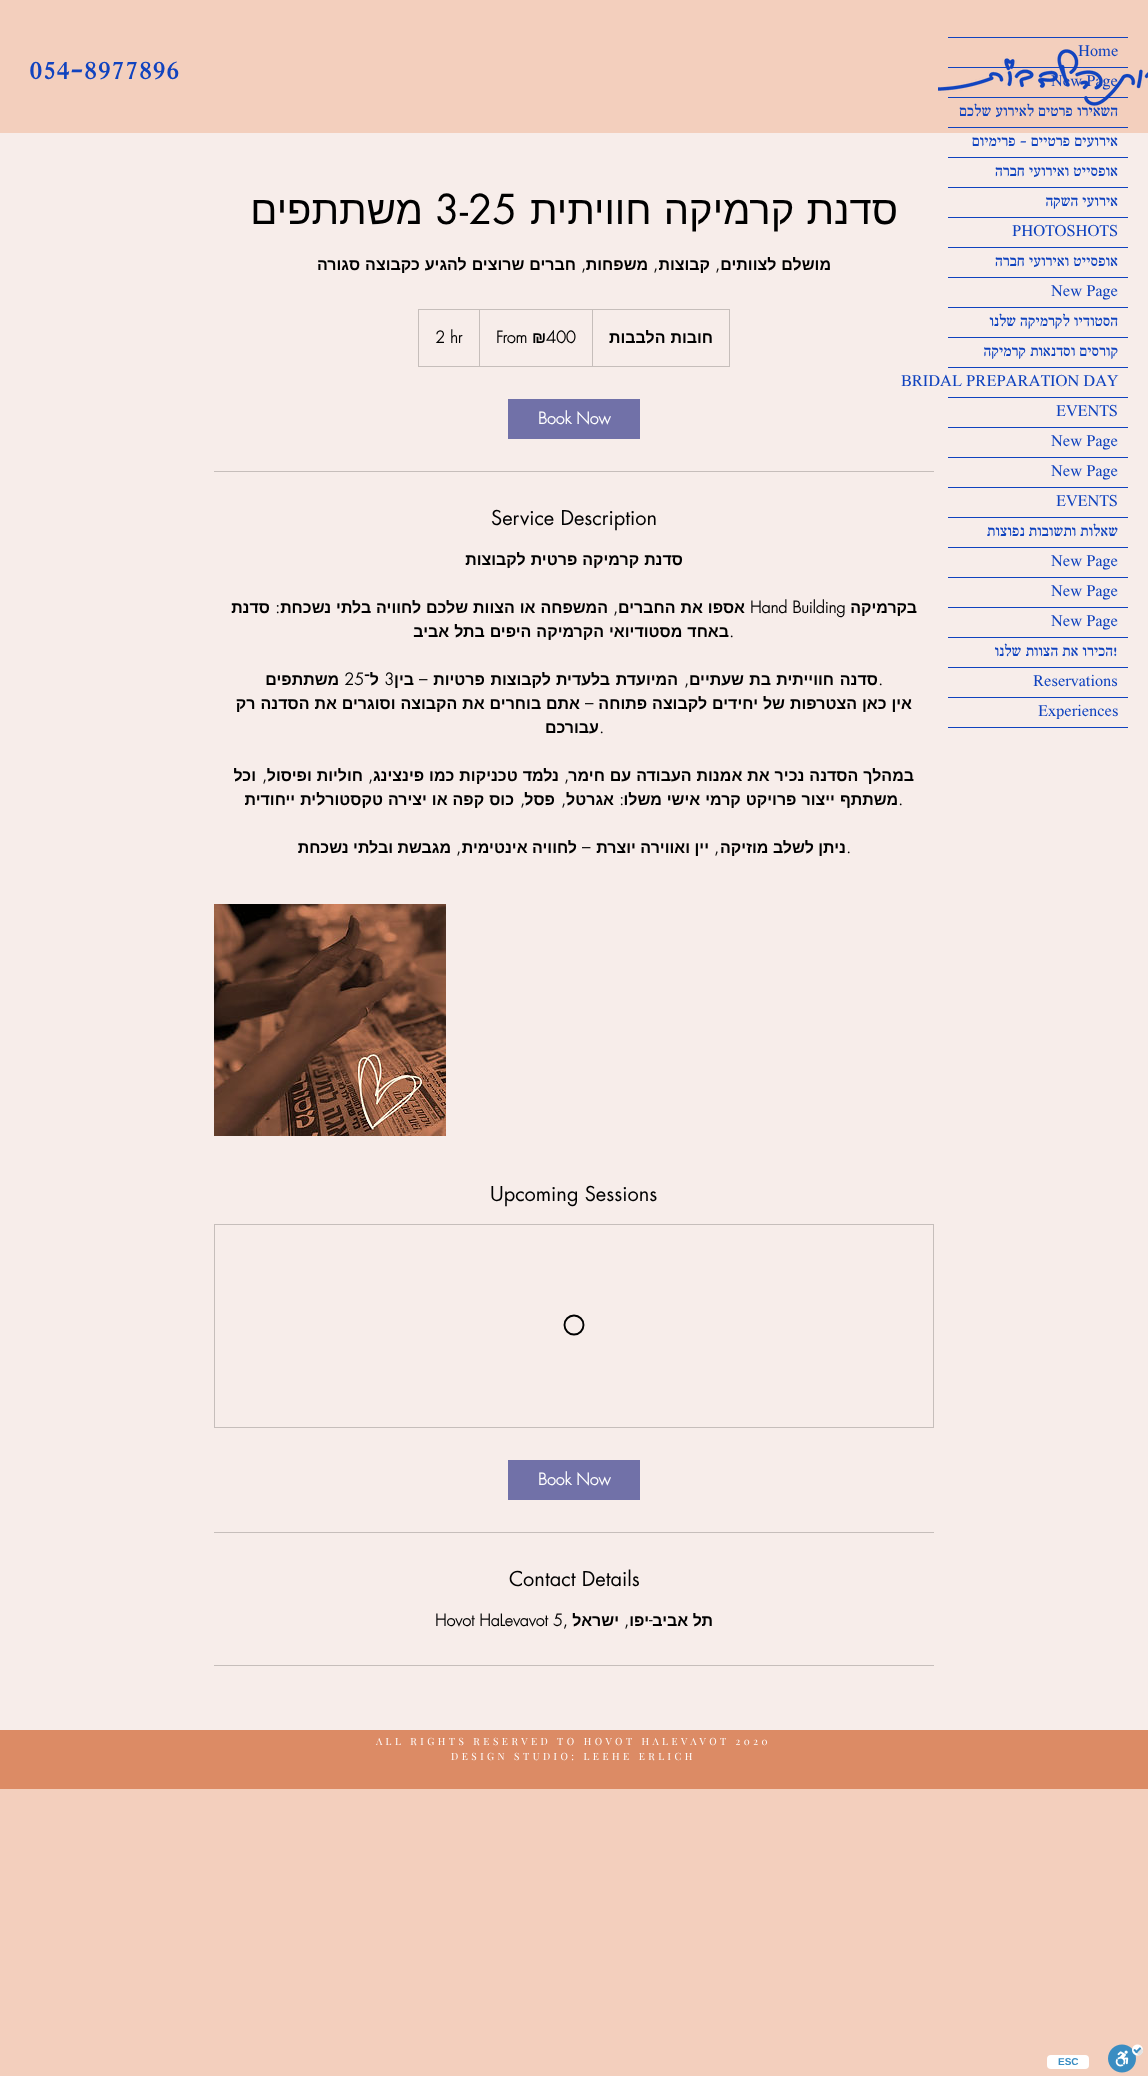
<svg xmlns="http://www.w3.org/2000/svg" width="1148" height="2076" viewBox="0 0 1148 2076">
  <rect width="100%" height="100%" fill="#f3cfbd"/>
  <rect x="948" y="37" width="180" height="1" fill="#1043bf"/>
  <rect x="0" y="133" width="1148" height="1597" fill="#f7edea"/>
  <rect x="948" y="727" width="180" height="1" fill="#1043bf"/>
  <image x="938" y="49" width="210" height="57" href="img1.png"/>
  <rect x="948" y="67" width="180" height="1" fill="#1043bf"/>
  <text x="1078" y="56" font-family="'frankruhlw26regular'" font-size="16" fill="#1043bf">Home</text>
  <rect x="948" y="97" width="180" height="1" fill="#1043bf"/>
  <text x="1051" y="86" font-family="'frankruhlw26regular'" font-size="16" fill="#1043bf">New Page</text>
  <rect x="948" y="127" width="180" height="1" fill="#1043bf"/>
  <text x="1118" y="116" font-family="'frankruhlw26regular'" font-size="16" direction="rtl" fill="#1043bf">השאירו פרטים לאירוע שלכם</text>
  <rect x="948" y="157" width="180" height="1" fill="#1043bf"/>
  <text x="1118" y="146" font-family="'frankruhlw26regular'" font-size="16" direction="rtl" fill="#1043bf">אירועים פרטיים - פרימיום</text>
  <rect x="948" y="187" width="180" height="1" fill="#1043bf"/>
  <text x="1118" y="176" font-family="'frankruhlw26regular'" font-size="16" direction="rtl" fill="#1043bf">אופסייט ואירועי חברה</text>
  <rect x="948" y="217" width="180" height="1" fill="#1043bf"/>
  <text x="1118" y="206" font-family="'frankruhlw26regular'" font-size="16" direction="rtl" fill="#1043bf">אירועי השקה</text>
  <rect x="948" y="247" width="180" height="1" fill="#1043bf"/>
  <text x="1012" y="236" font-family="'frankruhlw26regular'" font-size="16" fill="#1043bf">PHOTOSHOTS</text>
  <rect x="948" y="277" width="180" height="1" fill="#1043bf"/>
  <text x="1118" y="266" font-family="'frankruhlw26regular'" font-size="16" direction="rtl" fill="#1043bf">אופסייט ואירועי חברה</text>
  <rect x="948" y="307" width="180" height="1" fill="#1043bf"/>
  <text x="1051" y="296" font-family="'frankruhlw26regular'" font-size="16" fill="#1043bf">New Page</text>
  <rect x="948" y="337" width="180" height="1" fill="#1043bf"/>
  <text x="1118" y="326" font-family="'frankruhlw26regular'" font-size="16" direction="rtl" fill="#1043bf">הסטודיו לקרמיקה שלנו</text>
  <rect x="948" y="367" width="180" height="1" fill="#1043bf"/>
  <text x="1118" y="356" font-family="'frankruhlw26regular'" font-size="16" direction="rtl" fill="#1043bf">קורסים וסדנאות קרמיקה</text>
  <rect x="948" y="397" width="180" height="1" fill="#1043bf"/>
  <text x="901" y="386" font-family="'frankruhlw26regular'" font-size="16" fill="#1043bf">BRIDAL PREPARATION DAY</text>
  <rect x="948" y="427" width="180" height="1" fill="#1043bf"/>
  <text x="1056" y="416" font-family="'frankruhlw26regular'" font-size="16" fill="#1043bf">EVENTS</text>
  <rect x="948" y="457" width="180" height="1" fill="#1043bf"/>
  <text x="1051" y="446" font-family="'frankruhlw26regular'" font-size="16" fill="#1043bf">New Page</text>
  <rect x="948" y="487" width="180" height="1" fill="#1043bf"/>
  <text x="1051" y="476" font-family="'frankruhlw26regular'" font-size="16" fill="#1043bf">New Page</text>
  <rect x="948" y="517" width="180" height="1" fill="#1043bf"/>
  <text x="1056" y="506" font-family="'frankruhlw26regular'" font-size="16" fill="#1043bf">EVENTS</text>
  <rect x="948" y="547" width="180" height="1" fill="#1043bf"/>
  <text x="1118" y="536" font-family="'frankruhlw26regular'" font-size="16" direction="rtl" fill="#1043bf">שאלות ותשובות נפוצות</text>
  <rect x="948" y="577" width="180" height="1" fill="#1043bf"/>
  <text x="1051" y="566" font-family="'frankruhlw26regular'" font-size="16" fill="#1043bf">New Page</text>
  <rect x="948" y="607" width="180" height="1" fill="#1043bf"/>
  <text x="1051" y="596" font-family="'frankruhlw26regular'" font-size="16" fill="#1043bf">New Page</text>
  <rect x="948" y="637" width="180" height="1" fill="#1043bf"/>
  <text x="1051" y="626" font-family="'frankruhlw26regular'" font-size="16" fill="#1043bf">New Page</text>
  <rect x="948" y="667" width="180" height="1" fill="#1043bf"/>
  <text x="1113" y="656" font-family="'frankruhlw26regular'" font-size="16" fill="#1043bf">!</text>
  <text x="1113" y="656" font-family="'frankruhlw26regular'" font-size="16" direction="rtl" fill="#1043bf">הכירו את הצוות שלנו</text>
  <rect x="948" y="697" width="180" height="1" fill="#1043bf"/>
  <text x="1033" y="686" font-family="'frankruhlw26regular'" font-size="16" fill="#1043bf">Reservations</text>
  <text x="1038" y="716" font-family="'frankruhlw26regular'" font-size="16" fill="#1043bf">Experiences</text>
  <text x="29" y="79" font-family="'frankruhlw26regular'" font-size="31" fill="#1043bf">054-8977896</text>
  <text x="898" y="224" word-spacing="1" font-family="Liberation Sans" font-size="40" direction="rtl" fill="#000000">סדנת קרמיקה חוויתית</text>
  <text x="435" y="224" font-family="futura" font-size="40" fill="#000000">3-25</text>
  <text x="423" y="224" font-family="Liberation Sans" font-size="40" direction="rtl" fill="#000000">משתתפים</text>
  <text x="831" y="270" word-spacing="0.5" font-family="Liberation Sans" font-size="16" font-weight="bold" direction="rtl" fill="#000000">מושלם לצוותים</text>
  <text x="720" y="270" font-family="futura" font-size="16" font-weight="bold" direction="rtl" fill="#000000">,</text>
  <text x="710" y="270" font-family="Liberation Sans" font-size="16" font-weight="bold" direction="rtl" fill="#000000">קבוצות</text>
  <text x="658" y="270" font-family="futura" font-size="16" font-weight="bold" direction="rtl" fill="#000000">,</text>
  <text x="648" y="270" font-family="Liberation Sans" font-size="16" font-weight="bold" direction="rtl" fill="#000000">משפחות</text>
  <text x="586" y="270" font-family="futura" font-size="16" font-weight="bold" direction="rtl" fill="#000000">,</text>
  <text x="576" y="270" word-spacing="0.5" font-family="Liberation Sans" font-size="16" font-weight="bold" direction="rtl" fill="#000000">חברים שרוצים להגיע כקבוצה סגורה</text>
  <rect x="418.5" y="309.5" width="311" height="57" fill="none" stroke="#c6bebb"/>
  <path d="M592 366V309L593 310V366Z" fill="#c6bebb"/>
  <text x="713" y="343" word-spacing="0.5" font-family="Liberation Sans" font-size="16" font-weight="bold" direction="rtl" fill="#000000">חובות הלבבות</text>
  <path d="M479 366V309L480 310V366Z" fill="#c6bebb"/>
  <text x="546" y="343" font-family="futura" font-size="16" font-weight="bold" fill="#000000">400</text>
  <text x="532" y="343" font-family="Liberation Sans" font-size="16" font-weight="bold" fill="#000000">₪</text>
  <text x="496" y="343" font-family="futura" font-size="16" font-weight="bold" fill="#000000">From</text>
  <text x="435" y="343" font-family="futura" font-size="16" font-weight="bold" fill="#000000">2 hr</text>
  <rect x="508" y="399" width="132" height="40" fill="#7171a8"/>
  <text x="538" y="424" font-family="futura" font-size="16" font-weight="bold" fill="#ffffff">Book Now</text>
  <rect x="214" y="471" width="720" height="1" fill="#c6bebb"/>
  <text x="491" y="525" font-family="futura" font-size="20" fill="#000000">Service Description</text>
  <text x="683" y="565" word-spacing="0.5" font-family="Liberation Sans" font-size="16" font-weight="bold" direction="rtl" fill="#000000">סדנת קרמיקה פרטית לקבוצות</text>
  <text x="917" y="613" font-family="Liberation Sans" font-size="16" font-weight="bold" direction="rtl" fill="#000000">בקרמיקה</text>
  <text x="750" y="613" font-family="futura" font-size="16" font-weight="bold" fill="#000000">Hand Building</text>
  <text x="745" y="613" word-spacing="0.5" font-family="Liberation Sans" font-size="16" font-weight="bold" direction="rtl" fill="#000000">אספו את החברים</text>
  <text x="618" y="613" font-family="futura" font-size="16" font-weight="bold" direction="rtl" fill="#000000">,</text>
  <text x="608" y="613" word-spacing="0.5" font-family="Liberation Sans" font-size="16" font-weight="bold" direction="rtl" fill="#000000">המשפחה או הצוות שלכם לחוויה בלתי נשכחת</text>
  <text x="280" y="613" font-family="futura" font-size="16" font-weight="bold" direction="rtl" fill="#000000">:</text>
  <text x="270" y="613" font-family="Liberation Sans" font-size="16" font-weight="bold" direction="rtl" fill="#000000">סדנת</text>
  <text x="729" y="637" font-family="futura" font-size="16" font-weight="bold" fill="#000000">.</text>
  <text x="729" y="637" word-spacing="0.5" font-family="Liberation Sans" font-size="16" font-weight="bold" direction="rtl" fill="#000000">באחד מסטודיואי הקרמיקה היפים בתל אביב</text>
  <text x="878" y="685" font-family="Liberation Sans" font-size="16" font-weight="bold" direction="rtl" fill="#000000">סדנה</text>
  <text x="834" y="685" font-family="Liberation Sans" font-size="16" font-weight="bold" direction="rtl" fill="#000000">חווייתית</text>
  <text x="771" y="685" font-family="Liberation Sans" font-size="16" font-weight="bold" direction="rtl" fill="#000000">בת</text>
  <text x="744" y="685" font-family="Liberation Sans" font-size="16" font-weight="bold" direction="rtl" fill="#000000">שעתיים</text>
  <text x="678" y="685" font-family="Liberation Sans" font-size="16" font-weight="bold" direction="rtl" fill="#000000">המיועדת</text>
  <text x="610" y="685" font-family="Liberation Sans" font-size="16" font-weight="bold" direction="rtl" fill="#000000">בלעדית</text>
  <text x="551" y="685" font-family="Liberation Sans" font-size="16" font-weight="bold" direction="rtl" fill="#000000">לקבוצות</text>
  <text x="485" y="685" font-family="Liberation Sans" font-size="16" font-weight="bold" direction="rtl" fill="#000000">פרטיות</text>
  <text x="427" y="685" font-family="futura" font-size="16" font-weight="bold" direction="rtl" fill="#000000">–</text>
  <text x="414" y="685" font-family="Liberation Sans" font-size="16" font-weight="bold" direction="rtl" fill="#000000">בין</text>
  <text x="384" y="685" font-family="futura" font-size="16" font-weight="bold" fill="#000000">3</text>
  <text x="379" y="685" font-family="Liberation Sans" font-size="16" font-weight="bold" direction="rtl" fill="#000000">ל־</text>
  <text x="344" y="685" font-family="futura" font-size="16" font-weight="bold" fill="#000000">25</text>
  <text x="339" y="685" font-family="Liberation Sans" font-size="16" font-weight="bold" direction="rtl" fill="#000000">משתתפים</text>
  <text x="878" y="685" font-family="futura" font-size="16" font-weight="bold" fill="#000000">.</text>
  <text x="689" y="685" font-family="futura" font-size="16" font-weight="bold" direction="rtl" fill="#000000">,</text>
  <text x="912" y="709" word-spacing="0.5" font-family="Liberation Sans" font-size="16" font-weight="bold" direction="rtl" fill="#000000">אין כאן הצטרפות של יחידים לקבוצה פתוחה</text>
  <text x="593" y="709" font-family="futura" font-size="16" font-weight="bold" direction="rtl" fill="#000000">–</text>
  <text x="580" y="709" word-spacing="0.5" font-family="Liberation Sans" font-size="16" font-weight="bold" direction="rtl" fill="#000000">אתם בוחרים את הקבוצה וסוגרים את הסדנה רק</text>
  <text x="599" y="733" font-family="futura" font-size="16" font-weight="bold" fill="#000000">.</text>
  <text x="599" y="733" font-family="Liberation Sans" font-size="16" font-weight="bold" direction="rtl" fill="#000000">עבורכם</text>
  <text x="914" y="781" word-spacing="0.5" font-family="Liberation Sans" font-size="16" font-weight="bold" direction="rtl" fill="#000000">במהלך הסדנה נכיר את אמנות העבודה עם חימר</text>
  <text x="569" y="781" font-family="futura" font-size="16" font-weight="bold" direction="rtl" fill="#000000">,</text>
  <text x="559" y="781" word-spacing="0.5" font-family="Liberation Sans" font-size="16" font-weight="bold" direction="rtl" fill="#000000">נלמד טכניקות כמו פינצינג</text>
  <text x="373" y="781" font-family="futura" font-size="16" font-weight="bold" direction="rtl" fill="#000000">,</text>
  <text x="363" y="781" word-spacing="0.5" font-family="Liberation Sans" font-size="16" font-weight="bold" direction="rtl" fill="#000000">חוליות ופיסול</text>
  <text x="267" y="781" font-family="futura" font-size="16" font-weight="bold" direction="rtl" fill="#000000">,</text>
  <text x="256" y="781" font-family="Liberation Sans" font-size="16" font-weight="bold" direction="rtl" fill="#000000">וכל</text>
  <text x="898" y="805" font-family="futura" font-size="16" font-weight="bold" fill="#000000">.</text>
  <text x="898" y="805" word-spacing="0.5" font-family="Liberation Sans" font-size="16" font-weight="bold" direction="rtl" fill="#000000">משתתף ייצור פרויקט קרמי אישי משלו</text>
  <text x="624" y="805" font-family="futura" font-size="16" font-weight="bold" direction="rtl" fill="#000000">:</text>
  <text x="614" y="805" font-family="Liberation Sans" font-size="16" font-weight="bold" direction="rtl" fill="#000000">אגרטל</text>
  <text x="566" y="805" font-family="futura" font-size="16" font-weight="bold" direction="rtl" fill="#000000">,</text>
  <text x="555" y="805" font-family="Liberation Sans" font-size="16" font-weight="bold" direction="rtl" fill="#000000">פסל</text>
  <text x="525" y="805" font-family="futura" font-size="16" font-weight="bold" direction="rtl" fill="#000000">,</text>
  <text x="514" y="805" word-spacing="0.5" font-family="Liberation Sans" font-size="16" font-weight="bold" direction="rtl" fill="#000000">כוס קפה או יצירה טקסטורלית ייחודית</text>
  <text x="846" y="853" font-family="Liberation Sans" font-size="16" font-weight="bold" direction="rtl" fill="#000000">ניתן לשלב מוזיקה</text>
  <text x="709" y="853" font-family="Liberation Sans" font-size="16" font-weight="bold" direction="rtl" fill="#000000">יין ואווירה יוצרת</text>
  <text x="590" y="853" font-family="futura" font-size="16" font-weight="bold" direction="rtl" fill="#000000">–</text>
  <text x="577" y="853" font-family="Liberation Sans" font-size="16" font-weight="bold" direction="rtl" fill="#000000">לחוויה אינטימית</text>
  <text x="451" y="853" font-family="Liberation Sans" font-size="16" font-weight="bold" direction="rtl" fill="#000000">מגבשת ובלתי נשכחת</text>
  <text x="846" y="853" font-family="futura" font-size="16" font-weight="bold" fill="#000000">.</text>
  <text x="719" y="853" font-family="futura" font-size="16" font-weight="bold" direction="rtl" fill="#000000">,</text>
  <text x="461" y="853" font-family="futura" font-size="16" font-weight="bold" direction="rtl" fill="#000000">,</text>
  <image x="214" y="904" width="232" height="232" href="img2.png"/>
  <text x="490" y="1201" font-family="futura" font-size="20" fill="#000000">Upcoming Sessions</text>
  <rect x="214.5" y="1224.5" width="719" height="203" fill="none" stroke="#c6bebb"/>
  <circle cx="574" cy="1325" r="9.5" fill="none" stroke="#000000" stroke-width="1.9"/>
  <rect x="508" y="1460" width="132" height="40" fill="#7171a8"/>
  <text x="538" y="1485" font-family="futura" font-size="16" font-weight="bold" fill="#ffffff">Book Now</text>
  <rect x="214" y="1532" width="720" height="1" fill="#c6bebb"/>
  <text x="509" y="1586" font-family="futura" font-size="20" fill="#000000">Contact Details</text>
  <text x="652" y="1626" font-family="futura" font-size="16" font-weight="bold" direction="rtl" fill="#000000">-</text>
  <text x="713" y="1626" font-family="Liberation Sans" font-size="16" font-weight="bold" direction="rtl" fill="#000000">תל אביב</text>
  <text x="649" y="1626" font-family="Liberation Sans" font-size="16" font-weight="bold" direction="rtl" fill="#000000">יפו</text>
  <text x="619" y="1626" font-family="Liberation Sans" font-size="16" font-weight="bold" direction="rtl" fill="#000000">ישראל</text>
  <text x="435" y="1626" font-family="futura" font-size="16" font-weight="bold" fill="#000000">Hovot HaLevavot 5,</text>
  <text x="629" y="1626" font-family="futura" font-size="16" font-weight="bold" direction="rtl" fill="#000000">,</text>
  <rect x="214" y="1665" width="720" height="1" fill="#c6bebb"/>
  <rect x="0" y="1730" width="1148" height="59" fill="#dc8b65"/>
  <text x="376" y="1745" font-family="Playfair Display" font-size="10" letter-spacing="3.5" fill="#ffffff">ALL RIGHTS RESERVED TO HOVOT HALEVAVOT 2020</text>
  <text x="451" y="1760" font-family="Playfair Display" font-size="10" letter-spacing="3.5" fill="#ffffff">DESIGN STUDIO: LEEHE ERLICH</text>
  <image x="1108" y="2044" width="35" height="29" href="img3.png"/>
  <rect x="1047" y="2055" width="42" height="14" rx="4" fill="#ffffff"/>
  <text x="1058" y="2065" font-family="Liberation Sans" font-size="10" font-weight="bold" fill="#3a8dc2">ESC</text>
</svg>
